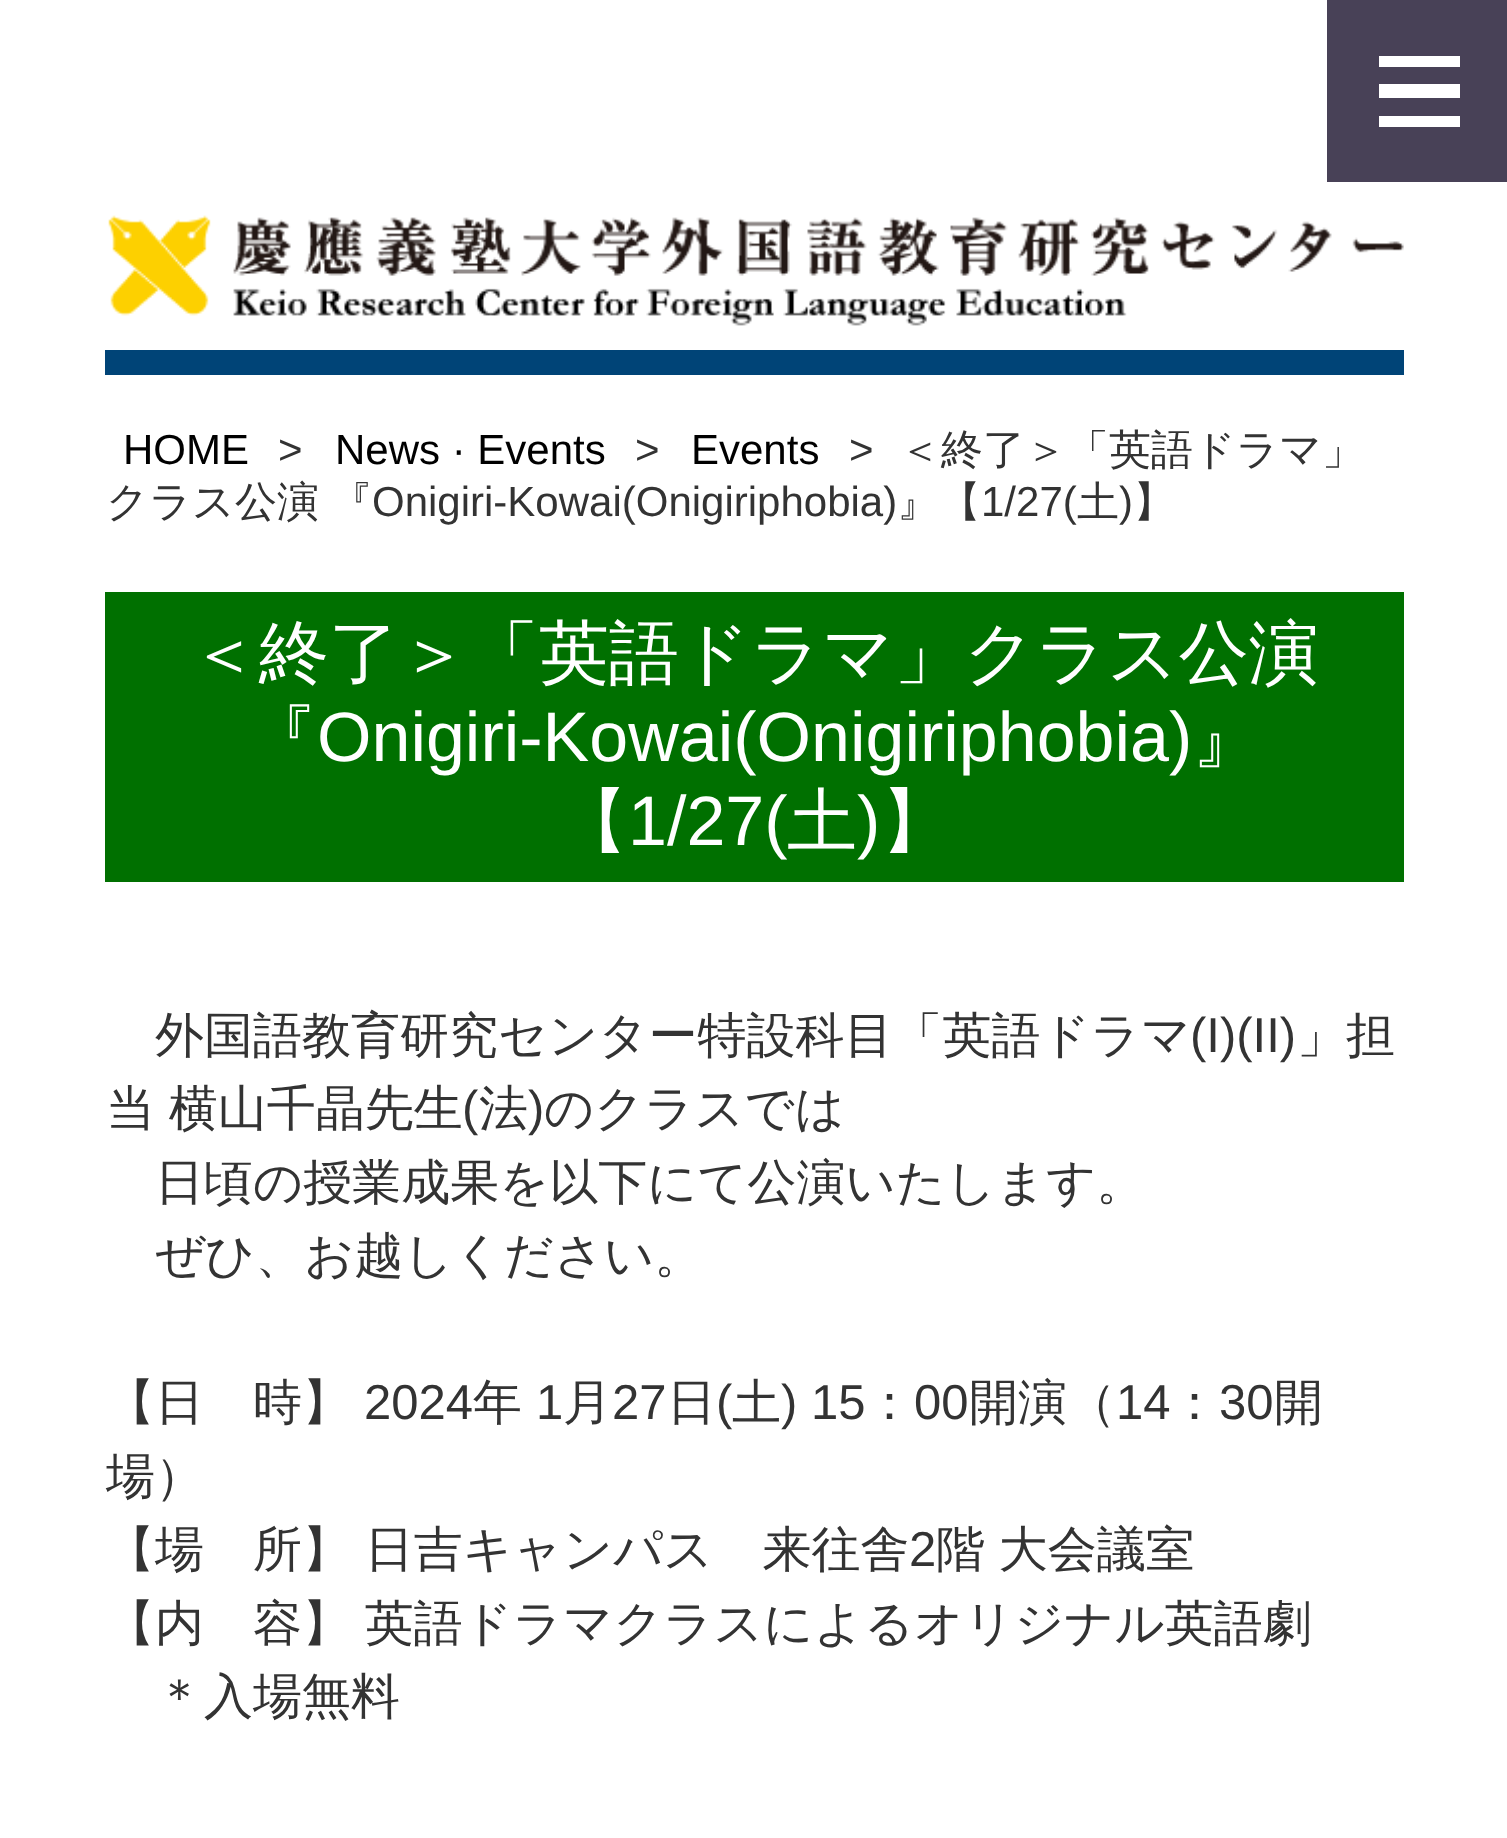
<svg xmlns="http://www.w3.org/2000/svg" width="1507" height="1838" viewBox="0 0 1507 1838">
  <rect width="100%" height="100%" fill="#ffffff"/>
  <rect x="1327" y="0" width="180" height="182" fill="#484157"/>
  <rect x="1379" y="56" width="81" height="11" fill="#ffffff"/>
  <rect x="1379" y="116" width="81" height="11" fill="#ffffff"/>
  <rect x="1379" y="84" width="81" height="14" fill="#ffffff"/>
  <rect x="105" y="350" width="1299" height="25" fill="#004477"/>
  <image x="108" y="215" width="1296" height="111" href="img1.png"/>
  <text x="123" y="464" font-family="Liberation Sans" font-size="42" fill="#000000">HOME</text>
  <text x="278" y="464" font-family="Liberation Sans" font-size="42" fill="#333333">&gt;</text>
  <text x="335" y="464" font-family="Liberation Sans" font-size="42" fill="#000000">News · Events</text>
  <text x="635" y="464" font-family="Liberation Sans" font-size="42" fill="#333333">&gt;</text>
  <text x="691" y="464" font-family="Liberation Sans" font-size="42" fill="#000000">Events</text>
  <text x="849" y="464" font-family="Liberation Sans" font-size="42" fill="#333333">&gt;</text>
  <text x="899" y="464" font-family="WenQuanYi Zen Hei" font-size="42" font-weight="500" fill="#333333">＜終了＞「英語ドラマ」</text>
  <text x="106" y="516" word-spacing="-1" font-family="WenQuanYi Zen Hei" font-size="42" font-weight="500" fill="#333333">クラス公演 『</text>
  <text x="372" y="516" font-family="Liberation Sans" font-size="42" fill="#333333">Onigiri-Kowai(Onigiriphobia)</text>
  <text x="897" y="516" font-family="WenQuanYi Zen Hei" font-size="42" font-weight="500" fill="#333333">』【</text>
  <text x="981" y="516" font-family="Liberation Sans" font-size="42" fill="#333333">1/27(</text>
  <text x="1077" y="516" font-family="WenQuanYi Zen Hei" font-size="42" font-weight="500" fill="#333333">土</text>
  <text x="1119" y="516" font-family="Liberation Sans" font-size="42" fill="#333333">)</text>
  <text x="1133" y="516" font-family="WenQuanYi Zen Hei" font-size="42" font-weight="500" fill="#333333">】</text>
  <rect x="105" y="592" width="1299" height="290" fill="#007000"/>
  <text x="189" y="677" font-family="WenQuanYi Zen Hei" font-size="70" font-weight="500" fill="#ffffff">＜終了＞「英語ドラマ」クラス公演</text>
  <text x="247" y="761" font-family="WenQuanYi Zen Hei" font-size="70" font-weight="500" fill="#ffffff">『</text>
  <text x="317" y="761" font-family="Liberation Sans" font-size="70" fill="#ffffff">Onigiri-Kowai(Onigiriphobia)</text>
  <text x="1192" y="761" font-family="WenQuanYi Zen Hei" font-size="70" font-weight="500" fill="#ffffff">』</text>
  <text x="558" y="845" font-family="WenQuanYi Zen Hei" font-size="70" font-weight="500" fill="#ffffff">【</text>
  <text x="628" y="845" font-family="Liberation Sans" font-size="70" fill="#ffffff">1/27(</text>
  <text x="787" y="845" font-family="WenQuanYi Zen Hei" font-size="70" font-weight="500" fill="#ffffff">土</text>
  <text x="857" y="845" font-family="Liberation Sans" font-size="70" fill="#ffffff">)</text>
  <text x="881" y="845" font-family="WenQuanYi Zen Hei" font-size="70" font-weight="500" fill="#ffffff">】</text>
  <text x="155" y="1052" font-family="WenQuanYi Zen Hei" font-size="49" font-weight="500" fill="#333333">外国語教育研究センター特設科目「英語ドラマ</text>
  <text x="1190" y="1052" font-family="Liberation Sans" font-size="49" fill="#333333">(I)(II)</text>
  <text x="1297" y="1052" font-family="WenQuanYi Zen Hei" font-size="49" font-weight="500" fill="#333333">」担</text>
  <text x="106" y="1125" word-spacing="-1" font-family="WenQuanYi Zen Hei" font-size="49" font-weight="500" fill="#333333">当 横山千晶先生</text>
  <text x="462" y="1125" font-family="Liberation Sans" font-size="49" fill="#333333">(</text>
  <text x="479" y="1125" font-family="WenQuanYi Zen Hei" font-size="49" font-weight="500" fill="#333333">法</text>
  <text x="528" y="1125" font-family="Liberation Sans" font-size="49" fill="#333333">)</text>
  <text x="544" y="1125" font-family="WenQuanYi Zen Hei" font-size="49" font-weight="500" fill="#333333">のクラスでは</text>
  <text x="155" y="1199" font-family="WenQuanYi Zen Hei" font-size="49" font-weight="500" fill="#333333">日頃の授業成果を以下にて公演いたします。</text>
  <text x="155" y="1272" font-family="WenQuanYi Zen Hei" font-size="49" font-weight="500" fill="#333333">ぜひ、お越しください。</text>
  <text x="106" y="1419" font-family="WenQuanYi Zen Hei" font-size="49" font-weight="500" fill="#333333">【日　時】</text>
  <text x="364" y="1419" font-family="Liberation Sans" font-size="49" fill="#333333">2024</text>
  <text x="473" y="1419" font-family="WenQuanYi Zen Hei" font-size="49" font-weight="500" fill="#333333">年</text>
  <text x="536" y="1419" font-family="Liberation Sans" font-size="49" fill="#333333">1</text>
  <text x="563" y="1419" font-family="WenQuanYi Zen Hei" font-size="49" font-weight="500" fill="#333333">月</text>
  <text x="612" y="1419" font-family="Liberation Sans" font-size="49" fill="#333333">27</text>
  <text x="667" y="1419" font-family="WenQuanYi Zen Hei" font-size="49" font-weight="500" fill="#333333">日</text>
  <text x="716" y="1419" font-family="Liberation Sans" font-size="49" fill="#333333">(</text>
  <text x="732" y="1419" font-family="WenQuanYi Zen Hei" font-size="49" font-weight="500" fill="#333333">土</text>
  <text x="781" y="1419" font-family="Liberation Sans" font-size="49" fill="#333333">) 15</text>
  <text x="865" y="1419" font-family="WenQuanYi Zen Hei" font-size="49" font-weight="500" fill="#333333">：</text>
  <text x="914" y="1419" font-family="Liberation Sans" font-size="49" fill="#333333">00</text>
  <text x="969" y="1419" font-family="WenQuanYi Zen Hei" font-size="49" font-weight="500" fill="#333333">開演（</text>
  <text x="1116" y="1419" font-family="Liberation Sans" font-size="49" fill="#333333">14</text>
  <text x="1170" y="1419" font-family="WenQuanYi Zen Hei" font-size="49" font-weight="500" fill="#333333">：</text>
  <text x="1219" y="1419" font-family="Liberation Sans" font-size="49" fill="#333333">30</text>
  <text x="1274" y="1419" font-family="WenQuanYi Zen Hei" font-size="49" font-weight="500" fill="#333333">開</text>
  <text x="106" y="1493" font-family="WenQuanYi Zen Hei" font-size="49" font-weight="500" fill="#333333">場）</text>
  <text x="106" y="1566" word-spacing="-1" font-family="WenQuanYi Zen Hei" font-size="49" font-weight="500" fill="#333333">【場　所】 日吉キャンパス　来往舎</text>
  <text x="909" y="1566" font-family="Liberation Sans" font-size="49" fill="#333333">2</text>
  <text x="936" y="1566" word-spacing="-1" font-family="WenQuanYi Zen Hei" font-size="49" font-weight="500" fill="#333333">階 大会議室</text>
  <text x="106" y="1640" word-spacing="-1" font-family="WenQuanYi Zen Hei" font-size="49" font-weight="500" fill="#333333">【内　容】 英語ドラマクラスによるオリジナル英語劇</text>
  <text x="155" y="1713" font-family="WenQuanYi Zen Hei" font-size="49" font-weight="500" fill="#333333">＊入場無料</text>
</svg>
